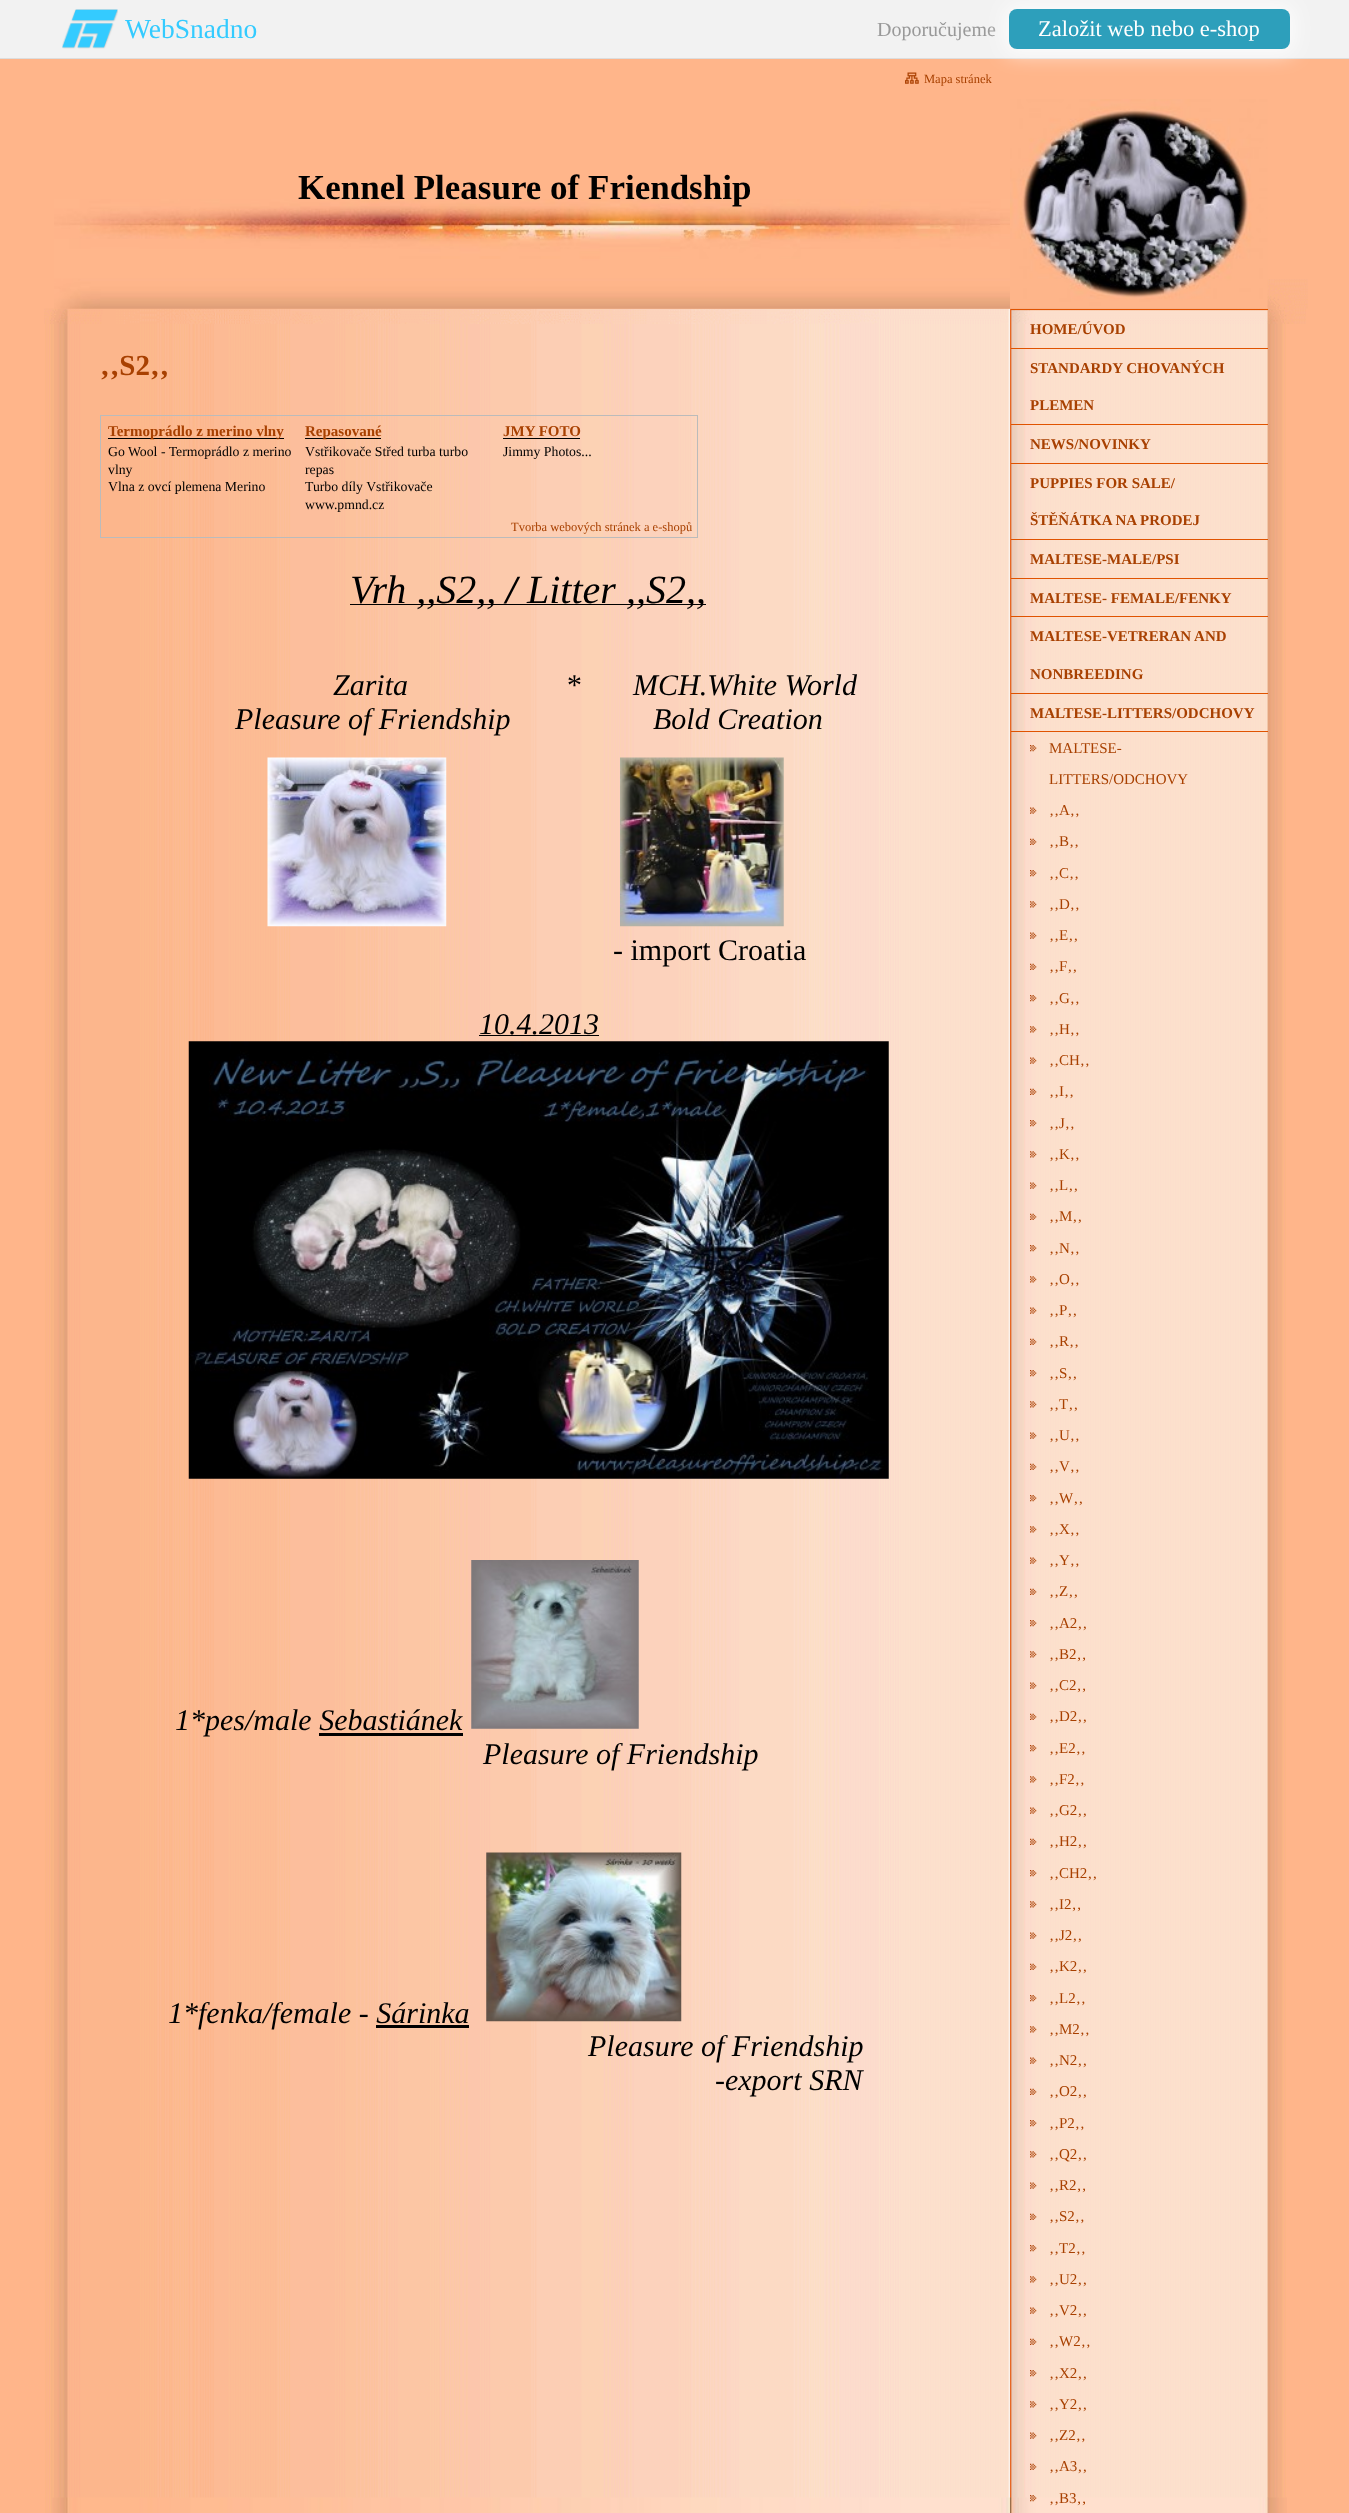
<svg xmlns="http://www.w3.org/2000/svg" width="1349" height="2513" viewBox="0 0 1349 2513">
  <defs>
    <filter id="blur1" x="-50%" y="-200%" width="200%" height="500%"><feGaussianBlur stdDeviation="10"/></filter>
    <clipPath id="clip1"><rect x="108" y="423" width="185" height="20"/></clipPath>
  </defs>
  <rect width="100%" height="100%" fill="#ffb58a"/>
  <rect x="0" y="0" width="1349" height="58" fill="#f2f2f2"/>
  <rect x="0" y="58" width="1349" height="1" fill="#dddddd"/>
  <image x="62" y="9" width="56" height="40" href="img1.png"/>
  <text x="125" y="38" font-family="Liberation Serif" font-size="27.5" fill="#34cbff">WebSnadno</text>
  <text x="877" y="36" font-family="Liberation Serif" font-size="20" fill="#999999">Doporučujeme</text>
  <rect x="1004" y="4" width="291" height="50" rx="13" fill="#ffffff" fill-opacity="0.75" filter="url(#blur1)"/>
  <rect x="1009" y="9" width="281" height="40" rx="8" fill="#2d9fbb"/>
  <text x="1038" y="36" font-family="Liberation Serif" font-size="22.5" fill="#ffffff">Založit web nebo e-shop</text>
  <image x="45" y="308" width="1241" height="2205" href="img7.png"/>
  <image x="44" y="308" width="1262" height="16" href="img9.png"/>
  <image x="54" y="199" width="956" height="110" href="img2.png"/>
  <image x="905" y="72" width="14" height="12" href="img3.png"/>
  <text x="924" y="83" font-family="Liberation Serif" font-size="12.5" fill="#a84001">Mapa stránek</text>
  <text x="298" y="199" font-family="Liberation Serif" font-size="35" font-weight="bold" fill="#000000">Kennel Pleasure of Friendship</text>
  <image x="1267" y="279" width="41" height="30" href="img6.png"/>
  <image x="1010" y="280" width="258" height="29" href="img4.png"/>
  <image x="1010" y="99" width="258" height="210" href="img5.png"/>
  <image x="52" y="2497" width="1235" height="16" href="img8.png"/>
  <text x="100" y="375" font-family="Liberation Serif" font-size="29" font-weight="bold" fill="#a84001">‚‚S2‚‚</text>
  <rect x="100.5" y="415.5" width="597" height="122" fill="none" stroke="#bbbbbb"/>
  <rect x="108" y="438" width="176" height="1" fill="#000000"/>
  <g clip-path="url(#clip1)">
    <text x="108" y="436" font-family="Liberation Serif" font-size="15" font-weight="bold" fill="#a84001">Termoprádlo z merino vlny</text>
  </g>
  <text x="108" y="456" font-family="Liberation Serif" font-size="13.75" fill="#000000">Go Wool - Termoprádlo z merino</text>
  <text x="108" y="474" font-family="Liberation Serif" font-size="13.75" fill="#000000">vlny</text>
  <text x="108" y="491" font-family="Liberation Serif" font-size="13.75" fill="#000000">Vlna z ovcí plemena Merino</text>
  <rect x="305" y="438" width="76" height="1" fill="#000000"/>
  <text x="305" y="436" font-family="Liberation Serif" font-size="15" font-weight="bold" fill="#a84001">Repasované</text>
  <text x="305" y="456" font-family="Liberation Serif" font-size="13.75" fill="#000000">Vstřikovače Střed turba turbo</text>
  <text x="305" y="474" font-family="Liberation Serif" font-size="13.75" fill="#000000">repas</text>
  <text x="305" y="491" font-family="Liberation Serif" font-size="13.75" fill="#000000">Turbo díly Vstřikovače</text>
  <text x="305" y="509" font-family="Liberation Serif" font-size="13.75" fill="#000000">www.pmnd.cz</text>
  <text x="503" y="436" font-family="Liberation Serif" font-size="15" font-weight="bold" fill="#a84001">JMY FOTO</text>
  <rect x="503" y="438" width="77" height="1" fill="#000000"/>
  <text x="503" y="456" font-family="Liberation Serif" font-size="13.75" fill="#000000">Jimmy Photos...</text>
  <text x="511" y="531" font-family="Liberation Serif" font-size="12.5" fill="#a84001">Tvorba webových stránek a e-shopů</text>
  <rect x="350" y="604" width="356" height="1" fill="#000000"/>
  <text x="350" y="603" font-family="Liberation Serif" font-size="40" font-style="italic" fill="#000000">Vrh ,,S2,,</text>
  <text x="506" y="603" font-family="Liberation Serif" font-size="40" font-weight="bold" font-style="italic" fill="#000000">/</text>
  <text x="527" y="603" font-family="Liberation Serif" font-size="40" font-style="italic" fill="#000000">Litter ,,S2,,</text>
  <text x="333" y="695" font-family="Liberation Serif" font-size="30" font-style="italic" fill="#000000" xml:space="preserve">Zarita                     *       MCH.White World</text>
  <text x="235" y="729" font-family="Liberation Serif" font-size="30" font-style="italic" fill="#000000" xml:space="preserve">Pleasure of Friendship                   Bold Creation</text>
  <image x="267" y="757" width="180" height="170" href="img10.png"/>
  <image x="620" y="757" width="164" height="170" href="img11.png"/>
  <text x="613" y="960" font-family="Liberation Serif" font-size="30" fill="#000000">- import Croatia</text>
  <text x="479" y="1034" font-family="Liberation Serif" font-size="30" font-style="italic" fill="#000000">10.4.2013</text>
  <rect x="479" y="1035" width="120" height="1" fill="#000000"/>
  <image x="188" y="1041" width="701" height="438" href="img12.png"/>
  <text x="175" y="1730" font-family="Liberation Serif" font-size="30" font-style="italic" fill="#000000">1*pes/male Sebastiánek</text>
  <rect x="319" y="1733" width="144" height="3" fill="#000000"/>
  <image x="471" y="1560" width="168" height="169" href="img13.png"/>
  <text x="483" y="1764" font-family="Liberation Serif" font-size="30" font-style="italic" fill="#000000">Pleasure of Friendship</text>
  <text x="168" y="2023" font-family="Liberation Serif" font-size="30" font-style="italic" fill="#000000">1*fenka/female - Sárinka</text>
  <rect x="376" y="2025" width="93" height="3" fill="#000000"/>
  <image x="486" y="1852" width="196" height="170" href="img14.png"/>
  <text x="588" y="2056" font-family="Liberation Serif" font-size="30" font-style="italic" fill="#000000">Pleasure of Friendship</text>
  <text x="715" y="2090" font-family="Liberation Serif" font-size="30" font-style="italic" fill="#000000">-export SRN</text>
  <rect x="1011" y="309" width="257" height="1" fill="#e05300"/>
  <text x="1030" y="334" font-family="Liberation Serif" font-size="15" font-weight="bold" fill="#a84001">HOME/ÚVOD</text>
  <rect x="1011" y="348" width="257" height="1" fill="#e05300"/>
  <text x="1030" y="373" font-family="Liberation Serif" font-size="15" font-weight="bold" fill="#a84001">STANDARDY CHOVANÝCH</text>
  <text x="1030" y="410" font-family="Liberation Serif" font-size="15" font-weight="bold" fill="#a84001">PLEMEN</text>
  <rect x="1011" y="424" width="257" height="1" fill="#e05300"/>
  <text x="1030" y="449" font-family="Liberation Serif" font-size="15" font-weight="bold" fill="#a84001">NEWS/NOVINKY</text>
  <rect x="1011" y="463" width="257" height="1" fill="#e05300"/>
  <text x="1030" y="488" font-family="Liberation Serif" font-size="15" font-weight="bold" fill="#a84001">PUPPIES FOR SALE/</text>
  <text x="1030" y="525" font-family="Liberation Serif" font-size="15" font-weight="bold" fill="#a84001">ŠTĚŇÁTKA NA PRODEJ</text>
  <rect x="1011" y="539" width="257" height="1" fill="#e05300"/>
  <text x="1030" y="564" font-family="Liberation Serif" font-size="15" font-weight="bold" fill="#a84001">MALTESE-MALE/PSI</text>
  <rect x="1011" y="578" width="257" height="1" fill="#e05300"/>
  <text x="1030" y="603" font-family="Liberation Serif" font-size="15" font-weight="bold" fill="#a84001">MALTESE- FEMALE/FENKY</text>
  <rect x="1011" y="616" width="257" height="1" fill="#e05300"/>
  <text x="1030" y="641" font-family="Liberation Serif" font-size="15" font-weight="bold" fill="#a84001">MALTESE-VETRERAN AND</text>
  <text x="1030" y="679" font-family="Liberation Serif" font-size="15" font-weight="bold" fill="#a84001">NONBREEDING</text>
  <rect x="1011" y="693" width="257" height="1" fill="#e05300"/>
  <text x="1030" y="718" font-family="Liberation Serif" font-size="15" font-weight="bold" fill="#a84001">MALTESE-LITTERS/ODCHOVY</text>
  <rect x="1011" y="731" width="257" height="1" fill="#e05300"/>
  <image x="1030" y="745" width="7" height="7" href="img15.png"/>
  <text x="1049" y="753" font-family="Liberation Serif" font-size="15" fill="#a84001">MALTESE-</text>
  <text x="1049" y="784" font-family="Liberation Serif" font-size="15" fill="#a84001">LITTERS/ODCHOVY</text>
  <image x="1030" y="807" width="7" height="7" href="img16.png"/>
  <text x="1049" y="815" font-family="Liberation Serif" font-size="15" fill="#a84001">‚‚A‚‚</text>
  <image x="1030" y="838" width="7" height="7" href="img17.png"/>
  <text x="1049" y="846" font-family="Liberation Serif" font-size="15" fill="#a84001">‚‚B‚‚</text>
  <image x="1030" y="870" width="7" height="7" href="img15.png"/>
  <text x="1049" y="878" font-family="Liberation Serif" font-size="15" fill="#a84001">‚‚C‚‚</text>
  <image x="1030" y="901" width="7" height="7" href="img18.png"/>
  <text x="1049" y="909" font-family="Liberation Serif" font-size="15" fill="#a84001">‚‚D‚‚</text>
  <image x="1030" y="932" width="7" height="7" href="img16.png"/>
  <text x="1049" y="940" font-family="Liberation Serif" font-size="15" fill="#a84001">‚‚E‚‚</text>
  <image x="1030" y="963" width="7" height="7" href="img17.png"/>
  <text x="1049" y="971" font-family="Liberation Serif" font-size="15" fill="#a84001">‚‚F‚‚</text>
  <image x="1030" y="995" width="7" height="7" href="img15.png"/>
  <text x="1049" y="1003" font-family="Liberation Serif" font-size="15" fill="#a84001">‚‚G‚‚</text>
  <image x="1030" y="1026" width="7" height="7" href="img18.png"/>
  <text x="1049" y="1034" font-family="Liberation Serif" font-size="15" fill="#a84001">‚‚H‚‚</text>
  <image x="1030" y="1057" width="7" height="7" href="img16.png"/>
  <text x="1049" y="1065" font-family="Liberation Serif" font-size="15" fill="#a84001">‚‚CH‚‚</text>
  <image x="1030" y="1088" width="7" height="7" href="img17.png"/>
  <text x="1049" y="1096" font-family="Liberation Serif" font-size="15" fill="#a84001">‚‚I‚‚</text>
  <image x="1030" y="1120" width="7" height="7" href="img15.png"/>
  <text x="1049" y="1128" font-family="Liberation Serif" font-size="15" fill="#a84001">‚‚J‚‚</text>
  <image x="1030" y="1151" width="7" height="7" href="img18.png"/>
  <text x="1049" y="1159" font-family="Liberation Serif" font-size="15" fill="#a84001">‚‚K‚‚</text>
  <image x="1030" y="1182" width="7" height="7" href="img16.png"/>
  <text x="1049" y="1190" font-family="Liberation Serif" font-size="15" fill="#a84001">‚‚L‚‚</text>
  <image x="1030" y="1213" width="7" height="7" href="img17.png"/>
  <text x="1049" y="1221" font-family="Liberation Serif" font-size="15" fill="#a84001">‚‚M‚‚</text>
  <image x="1030" y="1245" width="7" height="7" href="img15.png"/>
  <text x="1049" y="1253" font-family="Liberation Serif" font-size="15" fill="#a84001">‚‚N‚‚</text>
  <image x="1030" y="1276" width="7" height="7" href="img18.png"/>
  <text x="1049" y="1284" font-family="Liberation Serif" font-size="15" fill="#a84001">‚‚O‚‚</text>
  <image x="1030" y="1307" width="7" height="7" href="img16.png"/>
  <text x="1049" y="1315" font-family="Liberation Serif" font-size="15" fill="#a84001">‚‚P‚‚</text>
  <image x="1030" y="1338" width="7" height="7" href="img17.png"/>
  <text x="1049" y="1346" font-family="Liberation Serif" font-size="15" fill="#a84001">‚‚R‚‚</text>
  <image x="1030" y="1370" width="7" height="7" href="img15.png"/>
  <text x="1049" y="1378" font-family="Liberation Serif" font-size="15" fill="#a84001">‚‚S‚‚</text>
  <image x="1030" y="1401" width="7" height="7" href="img18.png"/>
  <text x="1049" y="1409" font-family="Liberation Serif" font-size="15" fill="#a84001">‚‚T‚‚</text>
  <image x="1030" y="1432" width="7" height="7" href="img16.png"/>
  <text x="1049" y="1440" font-family="Liberation Serif" font-size="15" fill="#a84001">‚‚U‚‚</text>
  <image x="1030" y="1463" width="7" height="7" href="img17.png"/>
  <text x="1049" y="1471" font-family="Liberation Serif" font-size="15" fill="#a84001">‚‚V‚‚</text>
  <image x="1030" y="1495" width="7" height="7" href="img15.png"/>
  <text x="1049" y="1503" font-family="Liberation Serif" font-size="15" fill="#a84001">‚‚W‚‚</text>
  <image x="1030" y="1526" width="7" height="7" href="img19.png"/>
  <text x="1049" y="1534" font-family="Liberation Serif" font-size="15" fill="#a84001">‚‚X‚‚</text>
  <image x="1030" y="1557" width="7" height="7" href="img16.png"/>
  <text x="1049" y="1565" font-family="Liberation Serif" font-size="15" fill="#a84001">‚‚Y‚‚</text>
  <image x="1030" y="1588" width="7" height="7" href="img17.png"/>
  <text x="1049" y="1596" font-family="Liberation Serif" font-size="15" fill="#a84001">‚‚Z‚‚</text>
  <image x="1030" y="1620" width="7" height="7" href="img15.png"/>
  <text x="1049" y="1628" font-family="Liberation Serif" font-size="15" fill="#a84001">‚‚A2‚‚</text>
  <image x="1030" y="1651" width="7" height="7" href="img18.png"/>
  <text x="1049" y="1659" font-family="Liberation Serif" font-size="15" fill="#a84001">‚‚B2‚‚</text>
  <image x="1030" y="1682" width="7" height="7" href="img16.png"/>
  <text x="1049" y="1690" font-family="Liberation Serif" font-size="15" fill="#a84001">‚‚C2‚‚</text>
  <image x="1030" y="1713" width="7" height="7" href="img17.png"/>
  <text x="1049" y="1721" font-family="Liberation Serif" font-size="15" fill="#a84001">‚‚D2‚‚</text>
  <image x="1030" y="1745" width="7" height="7" href="img15.png"/>
  <text x="1049" y="1753" font-family="Liberation Serif" font-size="15" fill="#a84001">‚‚E2‚‚</text>
  <image x="1030" y="1776" width="7" height="7" href="img18.png"/>
  <text x="1049" y="1784" font-family="Liberation Serif" font-size="15" fill="#a84001">‚‚F2‚‚</text>
  <image x="1030" y="1807" width="7" height="7" href="img16.png"/>
  <text x="1049" y="1815" font-family="Liberation Serif" font-size="15" fill="#a84001">‚‚G2‚‚</text>
  <image x="1030" y="1838" width="7" height="7" href="img17.png"/>
  <text x="1049" y="1846" font-family="Liberation Serif" font-size="15" fill="#a84001">‚‚H2‚‚</text>
  <image x="1030" y="1870" width="7" height="7" href="img15.png"/>
  <text x="1049" y="1878" font-family="Liberation Serif" font-size="15" fill="#a84001">‚‚CH2‚‚</text>
  <image x="1030" y="1901" width="7" height="7" href="img18.png"/>
  <text x="1049" y="1909" font-family="Liberation Serif" font-size="15" fill="#a84001">‚‚I2‚‚</text>
  <image x="1030" y="1932" width="7" height="7" href="img16.png"/>
  <text x="1049" y="1940" font-family="Liberation Serif" font-size="15" fill="#a84001">‚‚J2‚‚</text>
  <image x="1030" y="1963" width="7" height="7" href="img17.png"/>
  <text x="1049" y="1971" font-family="Liberation Serif" font-size="15" fill="#a84001">‚‚K2‚‚</text>
  <image x="1030" y="1995" width="7" height="7" href="img15.png"/>
  <text x="1049" y="2003" font-family="Liberation Serif" font-size="15" fill="#a84001">‚‚L2‚‚</text>
  <image x="1030" y="2026" width="7" height="7" href="img18.png"/>
  <text x="1049" y="2034" font-family="Liberation Serif" font-size="15" fill="#a84001">‚‚M2‚‚</text>
  <image x="1030" y="2057" width="7" height="7" href="img16.png"/>
  <text x="1049" y="2065" font-family="Liberation Serif" font-size="15" fill="#a84001">‚‚N2‚‚</text>
  <image x="1030" y="2088" width="7" height="7" href="img17.png"/>
  <text x="1049" y="2096" font-family="Liberation Serif" font-size="15" fill="#a84001">‚‚O2‚‚</text>
  <image x="1030" y="2120" width="7" height="7" href="img15.png"/>
  <text x="1049" y="2128" font-family="Liberation Serif" font-size="15" fill="#a84001">‚‚P2‚‚</text>
  <image x="1030" y="2151" width="7" height="7" href="img18.png"/>
  <text x="1049" y="2159" font-family="Liberation Serif" font-size="15" fill="#a84001">‚‚Q2‚‚</text>
  <image x="1030" y="2182" width="7" height="7" href="img16.png"/>
  <text x="1049" y="2190" font-family="Liberation Serif" font-size="15" fill="#a84001">‚‚R2‚‚</text>
  <image x="1030" y="2213" width="7" height="7" href="img17.png"/>
  <text x="1049" y="2221" font-family="Liberation Serif" font-size="15" fill="#a84001">‚‚S2‚‚</text>
  <image x="1030" y="2245" width="7" height="7" href="img15.png"/>
  <text x="1049" y="2253" font-family="Liberation Serif" font-size="15" fill="#a84001">‚‚T2‚‚</text>
  <image x="1030" y="2276" width="7" height="7" href="img18.png"/>
  <text x="1049" y="2284" font-family="Liberation Serif" font-size="15" fill="#a84001">‚‚U2‚‚</text>
  <image x="1030" y="2307" width="7" height="7" href="img16.png"/>
  <text x="1049" y="2315" font-family="Liberation Serif" font-size="15" fill="#a84001">‚‚V2‚‚</text>
  <image x="1030" y="2338" width="7" height="7" href="img17.png"/>
  <text x="1049" y="2346" font-family="Liberation Serif" font-size="15" fill="#a84001">‚‚W2‚‚</text>
  <image x="1030" y="2370" width="7" height="7" href="img15.png"/>
  <text x="1049" y="2378" font-family="Liberation Serif" font-size="15" fill="#a84001">‚‚X2‚‚</text>
  <image x="1030" y="2401" width="7" height="7" href="img18.png"/>
  <text x="1049" y="2409" font-family="Liberation Serif" font-size="15" fill="#a84001">‚‚Y2‚‚</text>
  <image x="1030" y="2432" width="7" height="7" href="img16.png"/>
  <text x="1049" y="2440" font-family="Liberation Serif" font-size="15" fill="#a84001">‚‚Z2‚‚</text>
  <image x="1030" y="2463" width="7" height="7" href="img17.png"/>
  <text x="1049" y="2471" font-family="Liberation Serif" font-size="15" fill="#a84001">‚‚A3‚‚</text>
  <image x="1030" y="2495" width="7" height="7" href="img20.png"/>
  <text x="1049" y="2503" font-family="Liberation Serif" font-size="15" fill="#a84001">‚‚B3‚‚</text>
</svg>
